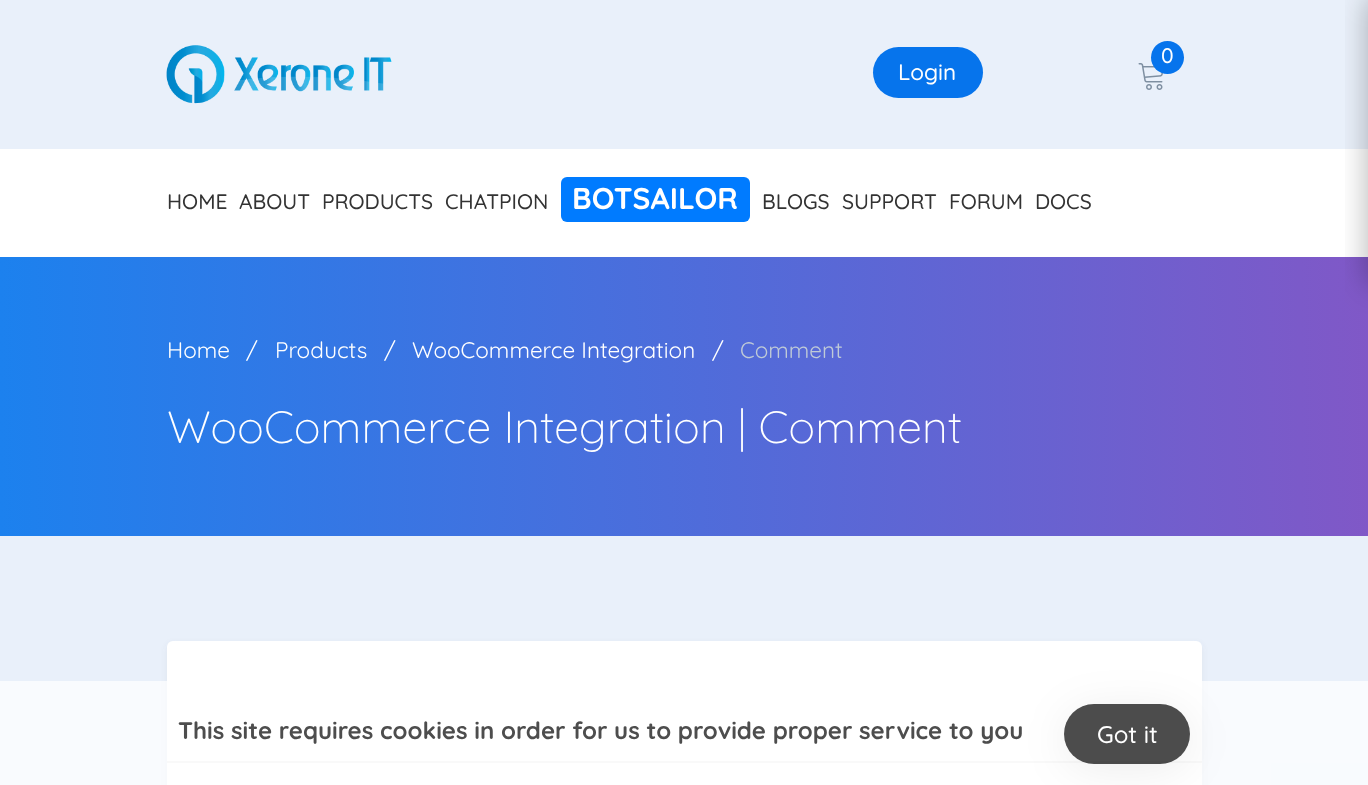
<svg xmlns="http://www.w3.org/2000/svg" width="1368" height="785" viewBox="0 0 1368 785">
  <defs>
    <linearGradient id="g1" gradientUnits="userSpaceOnUse" x1="1368" y1="396" x2="0" y2="396"><stop offset="0" stop-color="#8058c7"/><stop offset="1" stop-color="#1c81ee"/></linearGradient>
    <filter id="blur1" x="-50%" y="-200%" width="200%" height="500%"><feGaussianBlur stdDeviation="15"/></filter>
    <filter id="blur2" x="-50%" y="-200%" width="200%" height="500%"><feGaussianBlur stdDeviation="3"/></filter>
    <clipPath id="clip1"><path d="M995 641H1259V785H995ZM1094 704H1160C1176.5 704 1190 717.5 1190 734C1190 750.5 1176.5 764 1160 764H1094C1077.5 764 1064 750.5 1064 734C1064 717.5 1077.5 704 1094 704Z" clip-rule="evenodd"/></clipPath>
    <filter id="blur3" x="-50%" y="-200%" width="200%" height="500%"><feGaussianBlur stdDeviation="22.5"/></filter>
  </defs>
  <rect width="100%" height="100%" fill="#ffffff"/>
  <rect x="0" y="0" width="1368" height="149" fill="#e9f0fa"/>
  <image x="166" y="45" width="226" height="59" href="img1.png"/>
  <image x="1138" y="63" width="25" height="27" href="img2.png"/>
  <circle cx="1167.5" cy="57.5" r="16.5" fill="#0674ec"/>
  <text x="1161" y="63" font-family="Quicksand" font-size="21" font-weight="500" fill="#ffffff">0</text>
  <rect x="873" y="47" width="110" height="51" rx="25.5" fill="#0674ec"/>
  <text x="898" y="80" font-family="Quicksand" font-size="22.5" font-weight="500" fill="#ffffff">Login</text>
  <rect x="0" y="257" width="1368" height="279" fill="url(#g1)"/>
  <rect x="1368" y="-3" width="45" height="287" fill="#000000" fill-opacity="0.3" filter="url(#blur1)"/>
  <text x="167" y="209" font-family="Quicksand" font-size="21" font-weight="500" fill="#333333">HOME</text>
  <text x="239" y="209" font-family="Quicksand" font-size="21" font-weight="500" fill="#333333">ABOUT</text>
  <text x="322" y="209" font-family="Quicksand" font-size="21" font-weight="500" fill="#333333">PRODUCTS</text>
  <text x="445" y="209" font-family="Quicksand" font-size="21" font-weight="500" fill="#333333">CHATPION</text>
  <rect x="561" y="177" width="189" height="45" rx="6" fill="#007bff"/>
  <text x="572" y="209" font-family="Quicksand" font-size="30" font-weight="bold" fill="#ffffff">BOTSAILOR</text>
  <text x="762" y="209" font-family="Quicksand" font-size="21" font-weight="500" fill="#333333">BLOGS</text>
  <text x="842" y="209" font-family="Quicksand" font-size="21" font-weight="500" fill="#333333">SUPPORT</text>
  <text x="949" y="209" font-family="Quicksand" font-size="21" font-weight="500" fill="#333333">FORUM</text>
  <text x="1035" y="209" font-family="Quicksand" font-size="21" font-weight="500" fill="#333333">DOCS</text>
  <text x="167" y="358" font-family="Quicksand" font-size="22.5" fill="#ffffff">Home</text>
  <text x="246" y="358" font-family="Quicksand" font-size="22.5" fill="#ffffff">/</text>
  <text x="275" y="358" font-family="Quicksand" font-size="22.5" fill="#ffffff">Products</text>
  <text x="384" y="358" font-family="Quicksand" font-size="22.5" fill="#ffffff">/</text>
  <text x="412" y="358" font-family="Quicksand" font-size="22.5" fill="#ffffff">WooCommerce Integration</text>
  <text x="712" y="358" font-family="Quicksand" font-size="22.5" fill="#ffffff">/</text>
  <text x="740" y="358" font-family="Quicksand" font-size="22.5" fill="#bfcad7">Comment</text>
  <text x="167" y="443" font-family="Quicksand" font-size="45" font-weight="300" fill="#ffffff">WooCommerce Integration | Comment</text>
  <rect x="0" y="536" width="1368" height="249" fill="#e9f0fa"/>
  <rect x="167" y="644" width="1035" height="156" rx="6" fill="#6c6f73" fill-opacity="0.1" filter="url(#blur2)"/>
  <rect x="167" y="641" width="1035" height="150" rx="6" fill="#ffffff"/>
  <rect x="167" y="761" width="1035" height="2" fill="#ececec"/>
  <rect x="0" y="681" width="1368" height="104" fill="#ffffff" fill-opacity="0.7"/>
  <text x="178" y="739" font-family="Quicksand" font-size="24" font-weight="bold" fill="#4d4d4d">This site requires cookies in order for us to provide proper service to you</text>
  <g clip-path="url(#clip1)">
    <rect x="1064" y="710" width="126" height="60" rx="30" fill="#000000" fill-opacity="0.07" filter="url(#blur3)"/>
  </g>
  <rect x="1064" y="704" width="126" height="60" rx="30" fill="#000000" fill-opacity="0.7"/>
  <text x="1097" y="743" font-family="Quicksand" font-size="24" font-weight="500" fill="#ffffff">Got it</text>
</svg>
